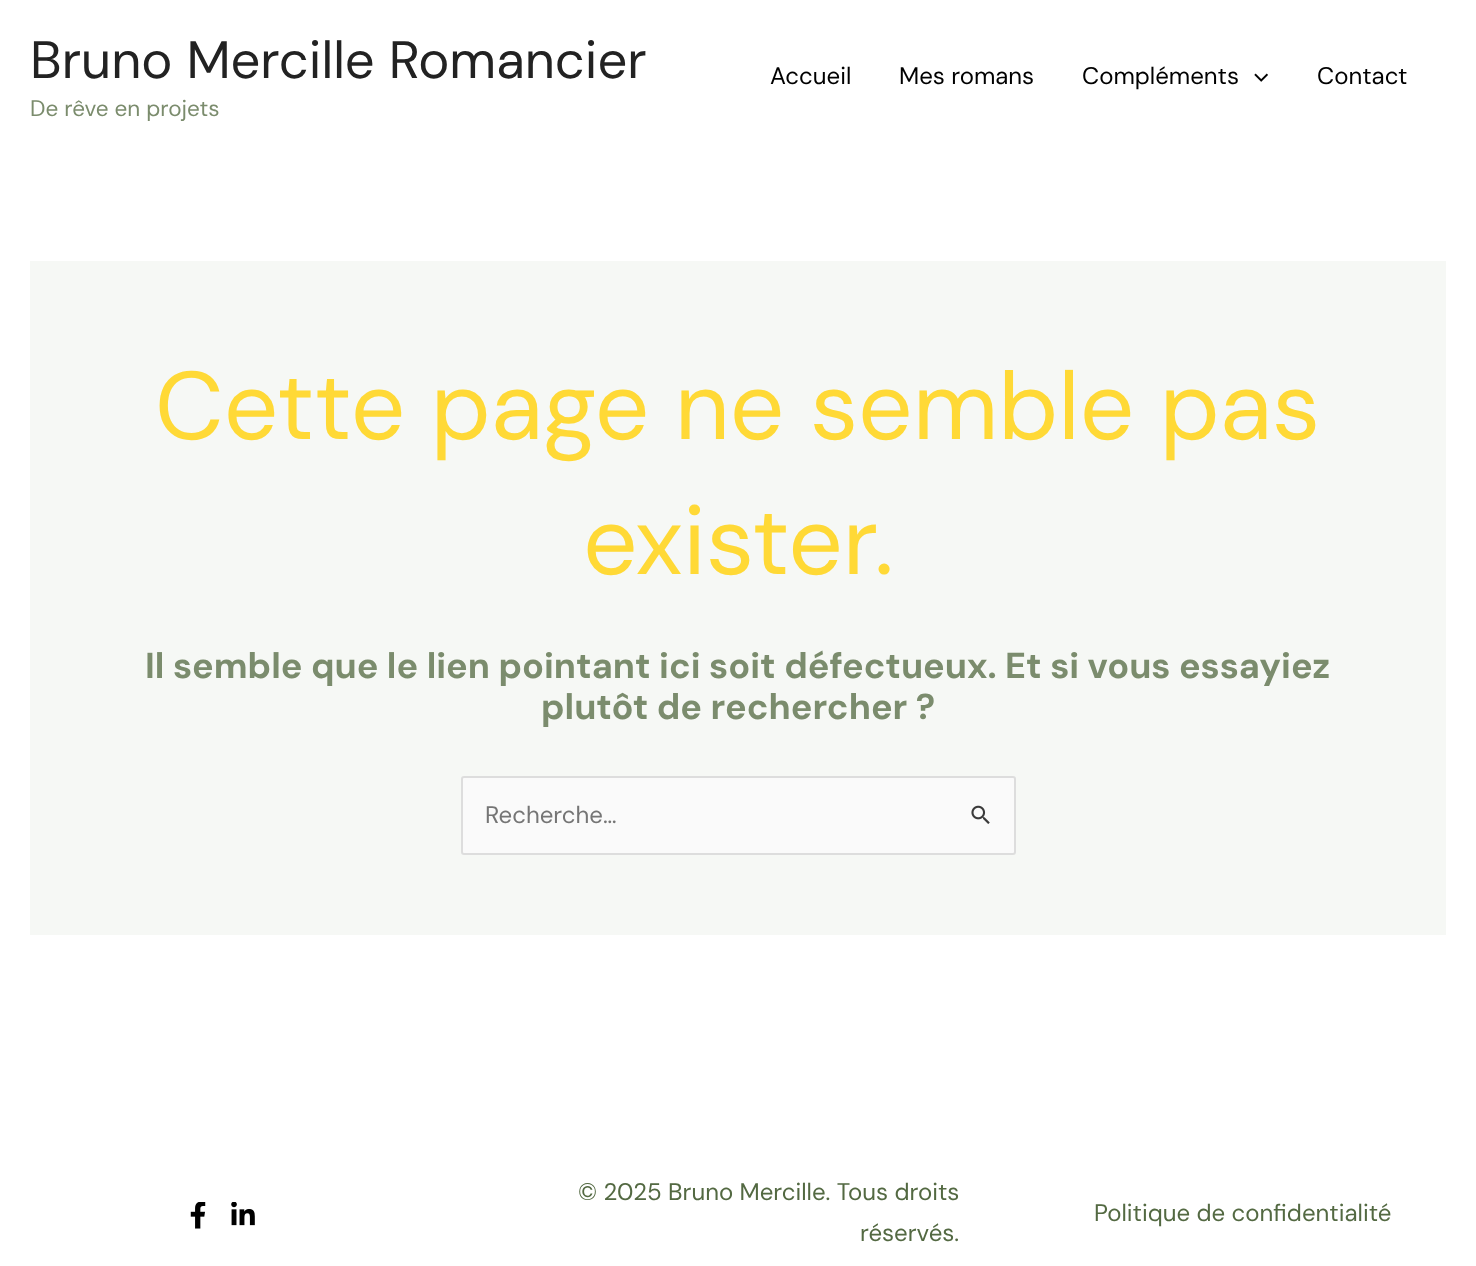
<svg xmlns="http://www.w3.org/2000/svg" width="1476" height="1266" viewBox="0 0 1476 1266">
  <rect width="100%" height="100%" fill="#ffffff"/>
  <text x="30" y="78" font-family="DM Sans" font-size="52.5" fill="#222222">Bruno Mercille Romancier</text>
  <text x="30" y="116" font-family="DM Sans" font-size="22.5" fill="#7b8c6d">De rêve en projets</text>
  <text x="770" y="84" font-family="DM Sans" font-size="24" fill="#000000">Accueil</text>
  <text x="899" y="84" font-family="DM Sans" font-size="24" fill="#000000">Mes romans</text>
  <text x="1082" y="84" font-family="DM Sans" font-size="24" fill="#000000">Compléments</text>
  <image x="1254" y="73" width="14" height="9" href="img1.png"/>
  <text x="1317" y="84" font-family="DM Sans" font-size="24" fill="#000000">Contact</text>
  <rect x="30" y="261" width="1416" height="674" fill="#f6f8f5"/>
  <text x="155" y="439" font-family="DM Sans" font-size="96" fill="#ffd936">Cette page ne semble pas</text>
  <text x="583" y="574" font-family="DM Sans" font-size="96" fill="#ffd936">exister.</text>
  <text x="145" y="678" font-family="DM Sans" font-size="36" font-weight="bold" fill="#7b8c6d">Il semble que le lien pointant ici soit défectueux. Et si vous essayiez</text>
  <text x="541" y="719" font-family="DM Sans" font-size="36" font-weight="bold" fill="#7b8c6d">plutôt de rechercher ?</text>
  <rect x="462" y="777" width="553" height="77" rx="2" fill="#fafafa" stroke="#dddddd" stroke-width="2"/>
  <text x="485" y="823" font-family="DM Sans" font-size="24" fill="#757575">Recherche…</text>
  <image x="971" y="805" width="19" height="19" href="img2.png"/>
  <image x="190" y="1202" width="16" height="27" href="img3.png"/>
  <image x="231" y="1202" width="24" height="24" href="img4.png"/>
  <text x="578" y="1200" font-family="DM Sans" font-size="24" fill="#536942">© 2025 Bruno Mercille. Tous droits</text>
  <text x="860" y="1241" font-family="DM Sans" font-size="24" fill="#536942">réservés.</text>
  <text x="1094" y="1221" font-family="DM Sans" font-size="24" fill="#536942">Politique de confidentialité</text>
</svg>
